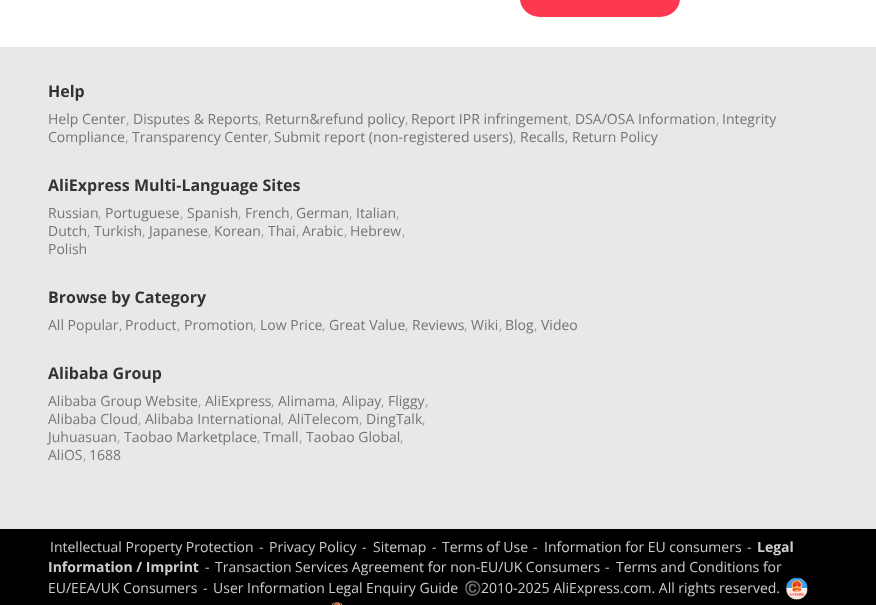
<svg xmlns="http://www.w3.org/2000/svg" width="876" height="605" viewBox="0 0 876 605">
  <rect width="100%" height="100%" fill="#ffffff"/>
  <rect x="520" y="-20" width="160" height="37" rx="20" fill="#fd384f"/>
  <rect x="0" y="47" width="876" height="482" fill="#e8e8e8"/>
  <text x="48" y="97" font-family="Open Sans" font-size="16" font-weight="bold" fill="#333333">Help</text>
  <text x="48" y="124" font-family="Open Sans" font-size="14" fill="#757575">Help Center</text>
  <text x="126" y="124" font-family="Open Sans" font-size="13" fill="#999999">,</text>
  <text x="133" y="124" font-family="Open Sans" font-size="14" fill="#757575">Disputes &amp; Reports</text>
  <text x="258" y="124" font-family="Open Sans" font-size="13" fill="#999999">,</text>
  <text x="265" y="124" font-family="Open Sans" font-size="14" fill="#757575">Return&amp;refund policy</text>
  <text x="405" y="124" font-family="Open Sans" font-size="13" fill="#999999">,</text>
  <text x="411" y="124" font-family="Open Sans" font-size="14" fill="#757575">Report IPR infringement</text>
  <text x="568" y="124" font-family="Open Sans" font-size="13" fill="#999999">,</text>
  <text x="575" y="124" font-family="Open Sans" font-size="14" fill="#757575">DSA/OSA Information</text>
  <text x="716" y="124" font-family="Open Sans" font-size="13" fill="#999999">,</text>
  <text x="722" y="124" font-family="Open Sans" font-size="14" fill="#757575">Integrity</text>
  <text x="48" y="142" font-family="Open Sans" font-size="14" fill="#757575">Compliance</text>
  <text x="125" y="142" font-family="Open Sans" font-size="13" fill="#999999">,</text>
  <text x="132" y="142" font-family="Open Sans" font-size="14" fill="#757575">Transparency Center</text>
  <text x="268" y="142" font-family="Open Sans" font-size="13" fill="#999999">,</text>
  <text x="274" y="142" font-family="Open Sans" font-size="14" fill="#757575">Submit report (non-registered users)</text>
  <text x="513" y="142" font-family="Open Sans" font-size="13" fill="#999999">,</text>
  <text x="520" y="142" font-family="Open Sans" font-size="14" fill="#757575">Recalls, Return Policy</text>
  <text x="48" y="191" font-family="Open Sans" font-size="16" font-weight="bold" fill="#333333">AliExpress Multi-Language Sites</text>
  <text x="48" y="218" font-family="Open Sans" font-size="14" fill="#757575">Russian</text>
  <text x="98" y="218" font-family="Open Sans" font-size="13" fill="#999999">,</text>
  <text x="105" y="218" font-family="Open Sans" font-size="14" fill="#757575">Portuguese</text>
  <text x="180" y="218" font-family="Open Sans" font-size="13" fill="#999999">,</text>
  <text x="187" y="218" font-family="Open Sans" font-size="14" fill="#757575">Spanish</text>
  <text x="238" y="218" font-family="Open Sans" font-size="13" fill="#999999">,</text>
  <text x="245" y="218" font-family="Open Sans" font-size="14" fill="#757575">French</text>
  <text x="290" y="218" font-family="Open Sans" font-size="13" fill="#999999">,</text>
  <text x="296" y="218" font-family="Open Sans" font-size="14" fill="#757575">German</text>
  <text x="349" y="218" font-family="Open Sans" font-size="13" fill="#999999">,</text>
  <text x="356" y="218" font-family="Open Sans" font-size="14" fill="#757575">Italian</text>
  <text x="396" y="218" font-family="Open Sans" font-size="13" fill="#999999">,</text>
  <text x="48" y="236" font-family="Open Sans" font-size="14" fill="#757575">Dutch</text>
  <text x="87" y="236" font-family="Open Sans" font-size="13" fill="#999999">,</text>
  <text x="94" y="236" font-family="Open Sans" font-size="14" fill="#757575">Turkish</text>
  <text x="142" y="236" font-family="Open Sans" font-size="13" fill="#999999">,</text>
  <text x="149" y="236" font-family="Open Sans" font-size="14" fill="#757575">Japanese</text>
  <text x="208" y="236" font-family="Open Sans" font-size="13" fill="#999999">,</text>
  <text x="214" y="236" font-family="Open Sans" font-size="14" fill="#757575">Korean</text>
  <text x="261" y="236" font-family="Open Sans" font-size="13" fill="#999999">,</text>
  <text x="268" y="236" font-family="Open Sans" font-size="14" fill="#757575">Thai</text>
  <text x="296" y="236" font-family="Open Sans" font-size="13" fill="#999999">,</text>
  <text x="302" y="236" font-family="Open Sans" font-size="14" fill="#757575">Arabic</text>
  <text x="344" y="236" font-family="Open Sans" font-size="13" fill="#999999">,</text>
  <text x="350" y="236" font-family="Open Sans" font-size="14" fill="#757575">Hebrew</text>
  <text x="402" y="236" font-family="Open Sans" font-size="13" fill="#999999">,</text>
  <text x="48" y="254" font-family="Open Sans" font-size="14" fill="#757575">Polish</text>
  <text x="48" y="303" font-family="Open Sans" font-size="16" font-weight="bold" fill="#333333">Browse by Category</text>
  <text x="48" y="330" font-family="Open Sans" font-size="14" fill="#757575">All Popular</text>
  <text x="119" y="330" font-family="Open Sans" font-size="13" fill="#999999">,</text>
  <text x="125" y="330" font-family="Open Sans" font-size="14" fill="#757575">Product</text>
  <text x="177" y="330" font-family="Open Sans" font-size="13" fill="#999999">,</text>
  <text x="184" y="330" font-family="Open Sans" font-size="14" fill="#757575">Promotion</text>
  <text x="253" y="330" font-family="Open Sans" font-size="13" fill="#999999">,</text>
  <text x="260" y="330" font-family="Open Sans" font-size="14" fill="#757575">Low Price</text>
  <text x="322" y="330" font-family="Open Sans" font-size="13" fill="#999999">,</text>
  <text x="329" y="330" font-family="Open Sans" font-size="14" fill="#757575">Great Value</text>
  <text x="405" y="330" font-family="Open Sans" font-size="13" fill="#999999">,</text>
  <text x="412" y="330" font-family="Open Sans" font-size="14" fill="#757575">Reviews</text>
  <text x="464" y="330" font-family="Open Sans" font-size="13" fill="#999999">,</text>
  <text x="471" y="330" font-family="Open Sans" font-size="14" fill="#757575">Wiki</text>
  <text x="499" y="330" font-family="Open Sans" font-size="13" fill="#999999">,</text>
  <text x="505" y="330" font-family="Open Sans" font-size="14" fill="#757575">Blog</text>
  <text x="534" y="330" font-family="Open Sans" font-size="13" fill="#999999">,</text>
  <text x="541" y="330" font-family="Open Sans" font-size="14" fill="#757575">Video</text>
  <text x="48" y="379" font-family="Open Sans" font-size="16" font-weight="bold" fill="#333333">Alibaba Group</text>
  <text x="48" y="406" font-family="Open Sans" font-size="14" fill="#757575">Alibaba Group Website</text>
  <text x="198" y="406" font-family="Open Sans" font-size="13" fill="#999999">,</text>
  <text x="205" y="406" font-family="Open Sans" font-size="14" fill="#757575">AliExpress</text>
  <text x="271" y="406" font-family="Open Sans" font-size="13" fill="#999999">,</text>
  <text x="278" y="406" font-family="Open Sans" font-size="14" fill="#757575">Alimama</text>
  <text x="335" y="406" font-family="Open Sans" font-size="13" fill="#999999">,</text>
  <text x="342" y="406" font-family="Open Sans" font-size="14" fill="#757575">Alipay</text>
  <text x="381" y="406" font-family="Open Sans" font-size="13" fill="#999999">,</text>
  <text x="388" y="406" font-family="Open Sans" font-size="14" fill="#757575">Fliggy</text>
  <text x="425" y="406" font-family="Open Sans" font-size="13" fill="#999999">,</text>
  <text x="48" y="424" font-family="Open Sans" font-size="14" fill="#757575">Alibaba Cloud</text>
  <text x="138" y="424" font-family="Open Sans" font-size="13" fill="#999999">,</text>
  <text x="145" y="424" font-family="Open Sans" font-size="14" fill="#757575">Alibaba International</text>
  <text x="281" y="424" font-family="Open Sans" font-size="13" fill="#999999">,</text>
  <text x="288" y="424" font-family="Open Sans" font-size="14" fill="#757575">AliTelecom</text>
  <text x="359" y="424" font-family="Open Sans" font-size="13" fill="#999999">,</text>
  <text x="366" y="424" font-family="Open Sans" font-size="14" fill="#757575">DingTalk</text>
  <text x="422" y="424" font-family="Open Sans" font-size="13" fill="#999999">,</text>
  <text x="48" y="442" font-family="Open Sans" font-size="14" fill="#757575">Juhuasuan</text>
  <text x="117" y="442" font-family="Open Sans" font-size="13" fill="#999999">,</text>
  <text x="124" y="442" font-family="Open Sans" font-size="14" fill="#757575">Taobao Marketplace</text>
  <text x="257" y="442" font-family="Open Sans" font-size="13" fill="#999999">,</text>
  <text x="263" y="442" font-family="Open Sans" font-size="14" fill="#757575">Tmall</text>
  <text x="299" y="442" font-family="Open Sans" font-size="13" fill="#999999">,</text>
  <text x="306" y="442" font-family="Open Sans" font-size="14" fill="#757575">Taobao Global</text>
  <text x="400" y="442" font-family="Open Sans" font-size="13" fill="#999999">,</text>
  <text x="48" y="460" font-family="Open Sans" font-size="14" fill="#757575">AliOS</text>
  <text x="83" y="460" font-family="Open Sans" font-size="13" fill="#999999">,</text>
  <text x="89" y="460" font-family="Open Sans" font-size="14" fill="#757575">1688</text>
  <rect x="0" y="529" width="876" height="76" fill="#000000"/>
  <text x="50" y="552" font-family="Open Sans" font-size="14" fill="#cccccc">Intellectual Property Protection</text>
  <text x="259" y="552" font-family="Open Sans" font-size="14" fill="#cccccc">-</text>
  <text x="269" y="552" font-family="Open Sans" font-size="14" fill="#cccccc">Privacy Policy</text>
  <text x="362" y="552" font-family="Open Sans" font-size="14" fill="#cccccc">-</text>
  <text x="373" y="552" font-family="Open Sans" font-size="14" fill="#cccccc">Sitemap</text>
  <text x="432" y="552" font-family="Open Sans" font-size="14" fill="#cccccc">-</text>
  <text x="442" y="552" font-family="Open Sans" font-size="14" fill="#cccccc">Terms of Use</text>
  <text x="533" y="552" font-family="Open Sans" font-size="14" fill="#cccccc">-</text>
  <text x="544" y="552" font-family="Open Sans" font-size="14" fill="#cccccc">Information for EU consumers</text>
  <text x="747" y="552" font-family="Open Sans" font-size="14" fill="#cccccc">-</text>
  <text x="757" y="552" font-family="Open Sans" font-size="14" font-weight="bold" fill="#cccccc">Legal</text>
  <text x="48" y="572" font-family="Open Sans" font-size="14" font-weight="bold" fill="#cccccc">Information / Imprint</text>
  <text x="205" y="572" font-family="Open Sans" font-size="14" fill="#cccccc">-</text>
  <text x="215" y="572" font-family="Open Sans" font-size="14" fill="#cccccc">Transaction Services Agreement for non-EU/UK Consumers</text>
  <text x="605" y="572" font-family="Open Sans" font-size="14" fill="#cccccc">-</text>
  <text x="616" y="572" font-family="Open Sans" font-size="14" fill="#cccccc">Terms and Conditions for</text>
  <text x="48" y="593" font-family="Open Sans" font-size="14" fill="#cccccc">EU/EEA/UK Consumers</text>
  <text x="203" y="593" font-family="Open Sans" font-size="14" fill="#cccccc">-</text>
  <text x="213" y="593" font-family="Open Sans" font-size="14" fill="#cccccc">User Information Legal Enquiry Guide</text>
  <text x="464" y="593" font-family="Noto Color Emoji" font-size="14" fill="#cccccc">©️</text>
  <text x="481" y="593" font-family="Open Sans" font-size="14" fill="#cccccc">2010-2025 AliExpress.com. All rights reserved.</text>
  <image x="786" y="577" width="22" height="23" href="img1.png"/>
  <image x="331" y="602" width="12" height="3" href="img2.png"/>
</svg>
